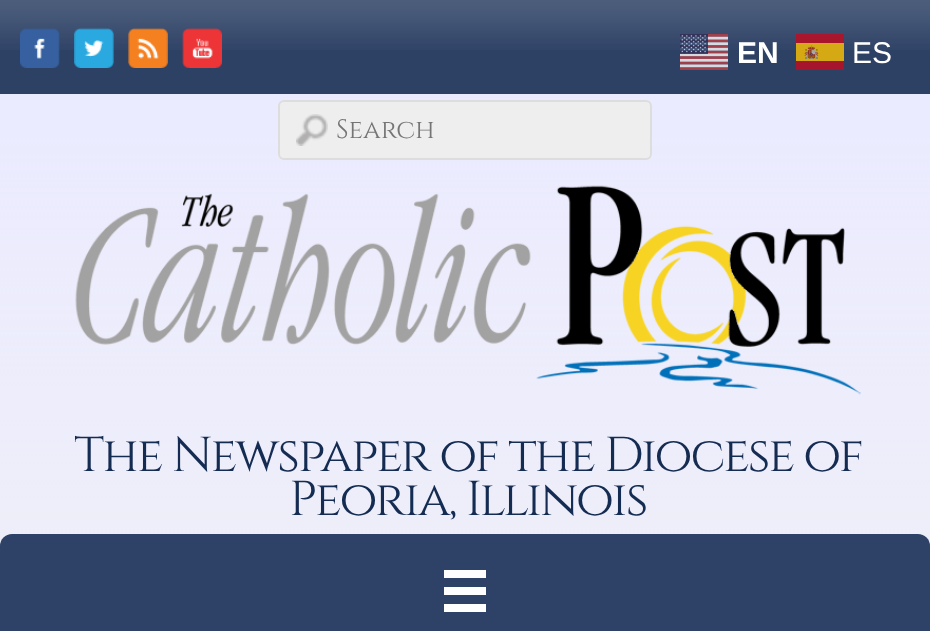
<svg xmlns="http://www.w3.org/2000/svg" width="930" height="631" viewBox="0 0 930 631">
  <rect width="100%" height="100%" fill="#ffffff"/>
  <image x="0" y="94" width="930" height="452" href="img1.png"/>
  <rect x="0" y="0" width="930" height="94" fill="#2d4165"/>
  <image x="0" y="0" width="930" height="50" href="img2.png"/>
  <image x="20" y="28" width="40" height="40" href="img3.png"/>
  <image x="74" y="28" width="40" height="40" href="img4.png"/>
  <image x="128" y="28" width="40" height="40" href="img5.png"/>
  <image x="182" y="28" width="40" height="40" href="img6.png"/>
  <image x="680" y="34" width="48" height="36" href="img7.png"/>
  <text x="737" y="63" font-family="Liberation Sans" font-size="30" font-weight="bold" fill="#ffffff">EN</text>
  <image x="796" y="34" width="48" height="36" href="img8.png"/>
  <text x="852" y="63" font-family="Liberation Sans" font-size="30" fill="#ffffff">ES</text>
  <rect x="278" y="100" width="374" height="60" rx="6" fill="#eeeeee"/>
  <image x="296" y="114" width="32" height="32" href="img9.png"/>
  <rect x="279" y="101" width="372" height="58" rx="5" fill="none" stroke="#dddddd" stroke-width="2"/>
  <text x="336" y="138" font-family="Cinzel" font-size="26.5" fill="#757575">Search</text>
  <image x="75" y="185" width="786" height="210" href="img10.png"/>
  <text x="74" y="471" font-family="Cinzel" font-size="49" letter-spacing="-2" fill="#152c52">The Newspaper of the Diocese of</text>
  <text x="289" y="515" font-family="Cinzel" font-size="49" letter-spacing="-2" fill="#152c52">Peoria, Illinois</text>
  <rect x="0" y="534" width="930" height="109" rx="12" fill="#2d4266"/>
  <rect x="444" y="570" width="42" height="8" fill="#ffffff"/>
  <rect x="444" y="587" width="42" height="8" fill="#ffffff"/>
  <rect x="444" y="604" width="42" height="8" fill="#ffffff"/>
</svg>
